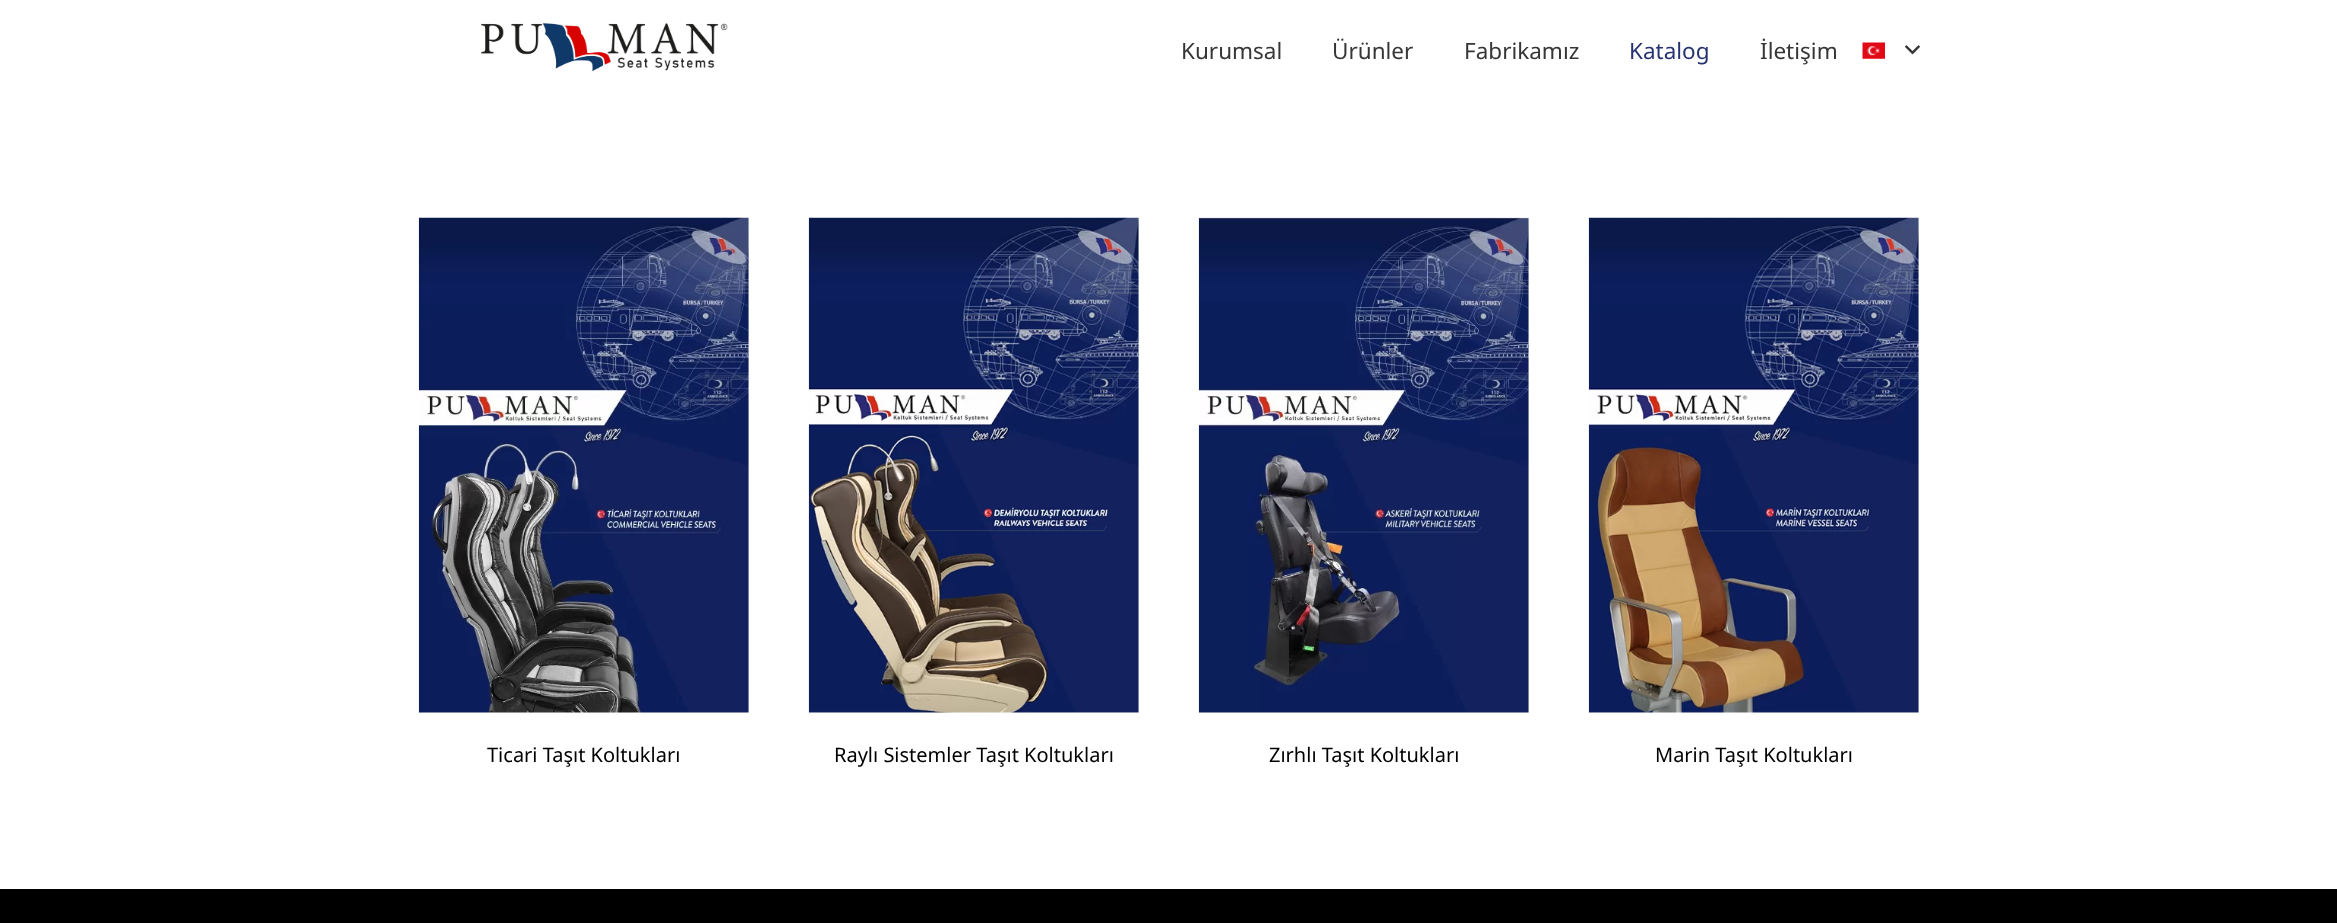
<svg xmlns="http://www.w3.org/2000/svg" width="2337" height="923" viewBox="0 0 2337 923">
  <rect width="100%" height="100%" fill="#ffffff"/>
  <image x="481" y="23" width="247" height="49" href="img1.png"/>
  <text x="1181" y="59" font-family="Noto Sans" font-size="22.5" fill="#363636">Kurumsal</text>
  <text x="1332" y="59" font-family="Noto Sans" font-size="22.5" fill="#363636">Ürünler</text>
  <text x="1464" y="59" font-family="Noto Sans" font-size="22.5" fill="#363636">Fabrikamız</text>
  <text x="1629" y="59" font-family="Noto Sans" font-size="22.5" fill="#273371">Katalog</text>
  <text x="1760" y="59" font-family="Noto Sans" font-size="22.5" fill="#363636">İletişim</text>
  <image x="1862" y="42" width="23" height="17" href="img2.png"/>
  <image x="1905" y="45" width="15" height="10" href="img3.png"/>
  <image x="418" y="217" width="331" height="496" href="img4.png"/>
  <text x="487" y="762" font-family="Noto Sans" font-size="20" fill="#000000">Ticari Taşıt Koltukları</text>
  <image x="808" y="217" width="331" height="496" href="img5.png"/>
  <text x="834" y="762" font-family="Noto Sans" font-size="20" fill="#000000">Raylı Sistemler Taşıt Koltukları</text>
  <image x="1198" y="217" width="331" height="496" href="img6.png"/>
  <text x="1269" y="762" font-family="Noto Sans" font-size="20" fill="#000000">Zırhlı Taşıt Koltukları</text>
  <image x="1588" y="217" width="331" height="496" href="img7.png"/>
  <text x="1655" y="762" font-family="Noto Sans" font-size="20" fill="#000000">Marin Taşıt Koltukları</text>
  <rect x="0" y="889" width="2337" height="34" fill="#000000"/>
</svg>
